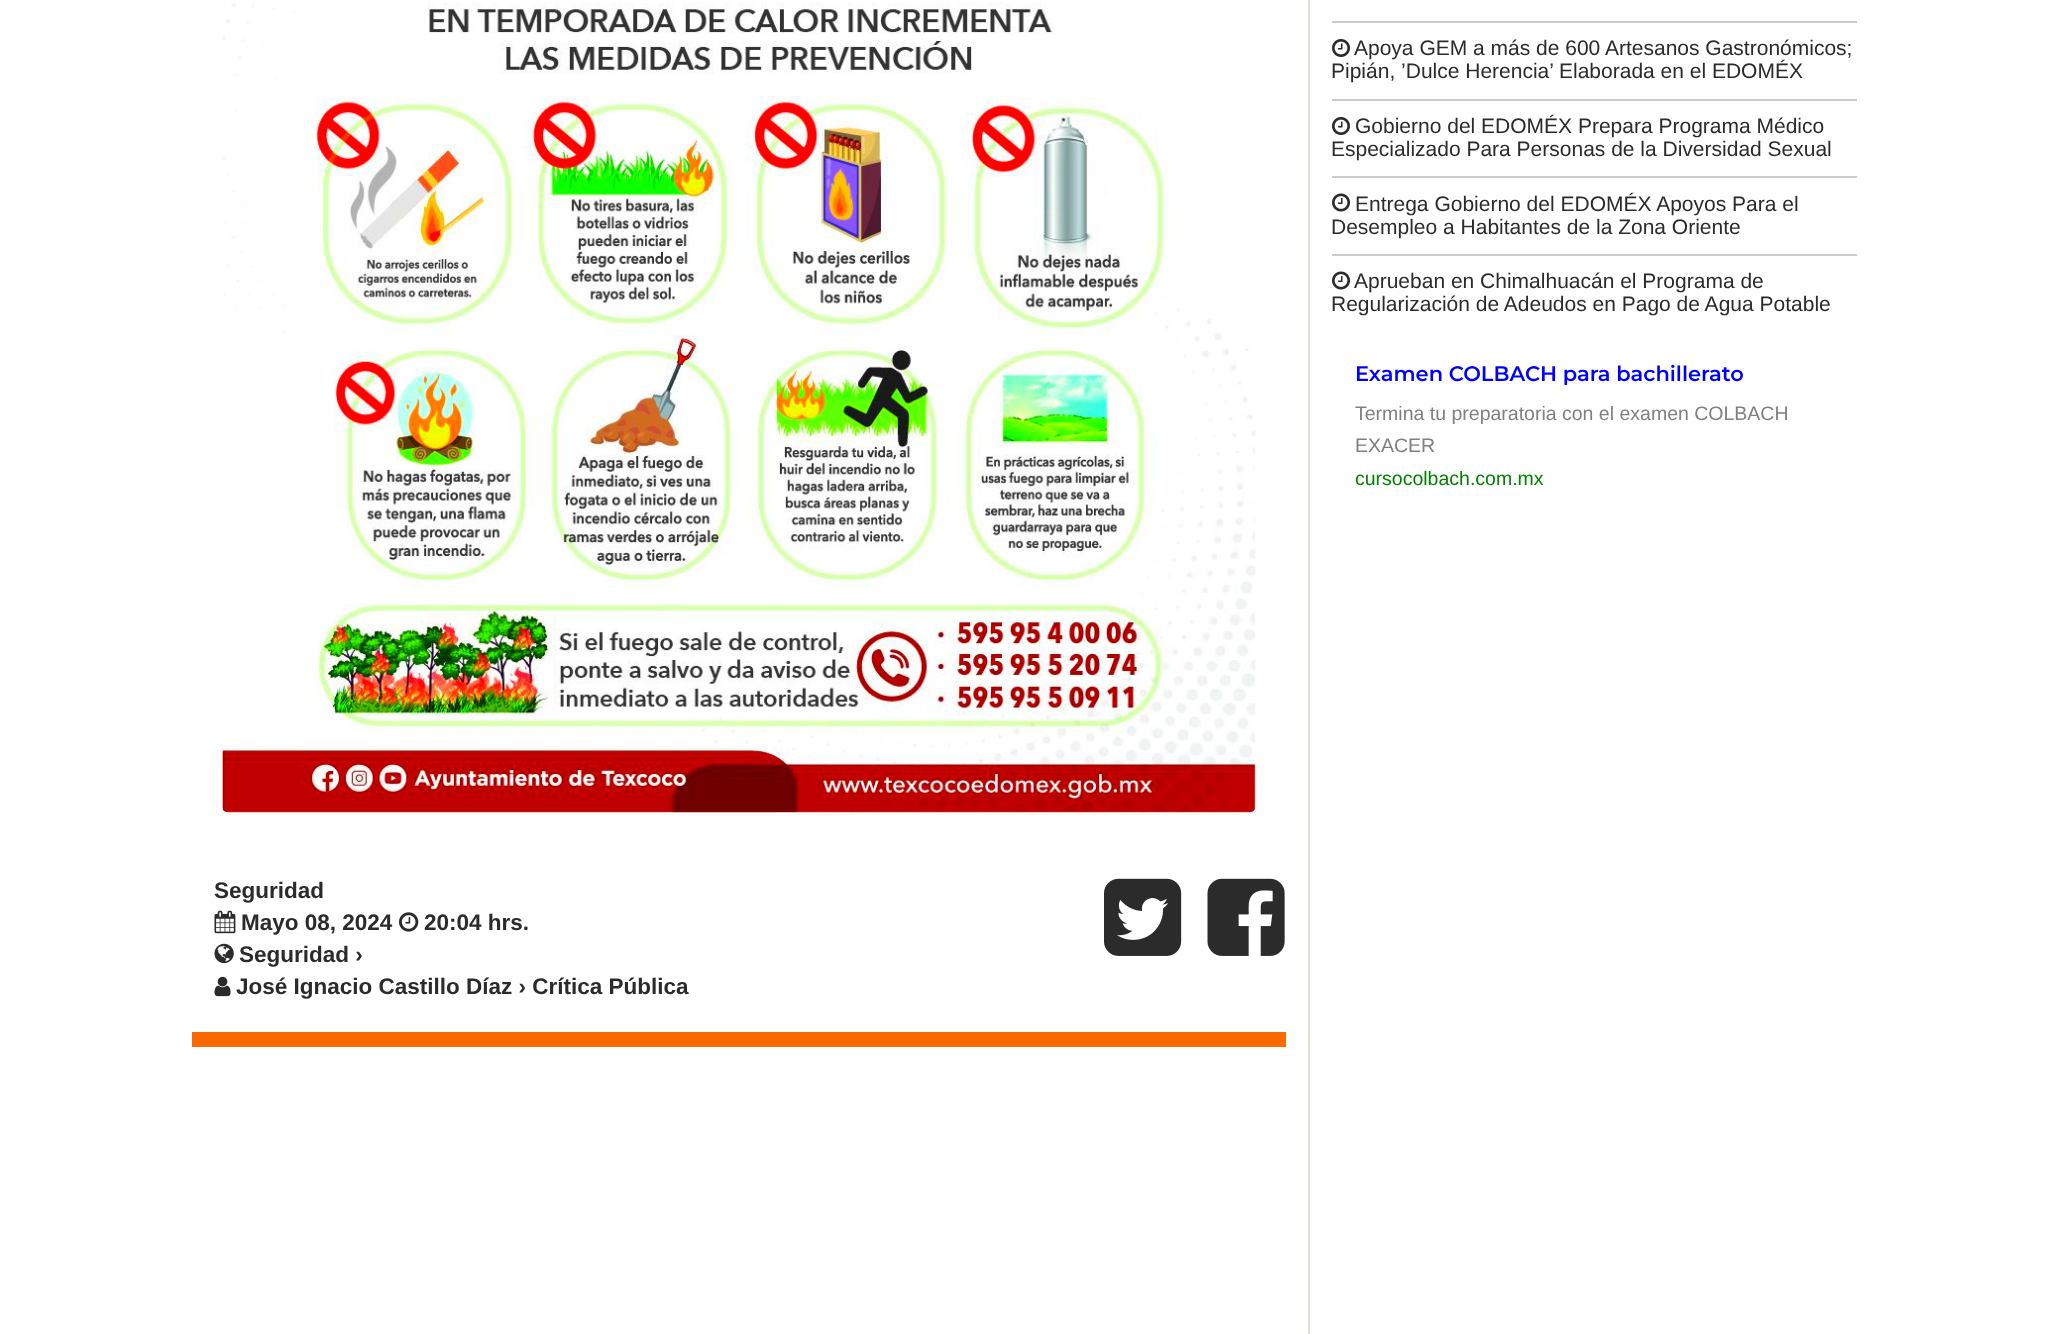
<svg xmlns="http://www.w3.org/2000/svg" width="2047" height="1334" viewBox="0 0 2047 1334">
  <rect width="100%" height="100%" fill="#ffffff"/>
  <rect x="1332" y="21" width="525" height="2" fill="#cccccc"/>
  <image x="1332" y="39" width="18" height="18" href="img1.png"/>
  <text x="1354" y="55" font-family="Liberation Sans" font-size="21" fill="#2b2b2b">Apoya GEM a más de 600 Artesanos Gastronómicos;</text>
  <text x="1331" y="78" font-family="Liberation Sans" font-size="21" fill="#2b2b2b">Pipián, ’Dulce Herencia’ Elaborada en el EDOMÉX</text>
  <rect x="1332" y="99" width="525" height="2" fill="#cccccc"/>
  <image x="1332" y="117" width="18" height="18" href="img1.png"/>
  <text x="1355" y="133" font-family="Liberation Sans" font-size="21" fill="#2b2b2b">Gobierno del EDOMÉX Prepara Programa Médico</text>
  <text x="1331" y="156" font-family="Liberation Sans" font-size="21" fill="#2b2b2b">Especializado Para Personas de la Diversidad Sexual</text>
  <rect x="1332" y="176" width="525" height="2" fill="#cccccc"/>
  <image x="1332" y="193" width="18" height="19" href="img2.png"/>
  <text x="1355" y="211" font-family="Liberation Sans" font-size="21" fill="#2b2b2b">Entrega Gobierno del EDOMÉX Apoyos Para el</text>
  <text x="1331" y="234" font-family="Liberation Sans" font-size="21" fill="#2b2b2b">Desempleo a Habitantes de la Zona Oriente</text>
  <rect x="1332" y="254" width="525" height="2" fill="#cccccc"/>
  <image x="1332" y="271" width="18" height="19" href="img2.png"/>
  <text x="1354" y="288" font-family="Liberation Sans" font-size="21" fill="#2b2b2b">Aprueban en Chimalhuacán el Programa de</text>
  <text x="1331" y="311" font-family="Liberation Sans" font-size="21" fill="#2b2b2b">Regularización de Adeudos en Pago de Agua Potable</text>
  <text x="1355" y="381" font-family="Montserrat" font-size="21" font-weight="600" fill="#0000ff">Examen COLBACH para bachillerato</text>
  <text x="1355" y="420" font-family="Liberation Sans" font-size="19.5" fill="#808080">Termina tu preparatoria con el examen COLBACH</text>
  <text x="1355" y="452" font-family="Liberation Sans" font-size="19.5" fill="#808080">EXACER</text>
  <text x="1355" y="485" font-family="Liberation Sans" font-size="19.5" fill="#008000">cursocolbach.com.mx</text>
  <rect x="1308" y="0" width="2" height="1334" fill="#e0e4cc"/>
  <image x="222" y="2" width="1034" height="811" href="img3.png"/>
  <text x="214" y="898" font-family="Liberation Sans" font-size="22.5" font-weight="bold" fill="#2b2b2b">Seguridad</text>
  <image x="214" y="910" width="22" height="24" href="img4.png"/>
  <text x="241" y="930" font-family="Liberation Sans" font-size="22.5" font-weight="bold" fill="#2b2b2b">Mayo 08, 2024</text>
  <image x="399" y="912" width="20" height="20" href="img5.png"/>
  <text x="424" y="930" font-family="Liberation Sans" font-size="22.5" font-weight="bold" fill="#2b2b2b">20:04 hrs.</text>
  <image x="214" y="943" width="20" height="21" href="img6.png"/>
  <text x="239" y="962" font-family="Liberation Sans" font-size="22.5" font-weight="bold" fill="#2b2b2b">Seguridad ›</text>
  <image x="214" y="976" width="17" height="21" href="img7.png"/>
  <text x="236" y="994" font-family="Liberation Sans" font-size="22.5" font-weight="bold" fill="#2b2b2b">José Ignacio Castillo Díaz › Crítica Pública</text>
  <image x="1104" y="878" width="78" height="78" href="img8.png"/>
  <image x="1207" y="878" width="78" height="78" href="img9.png"/>
  <rect x="192" y="1032" width="1094" height="15" fill="#fa6900"/>
</svg>
